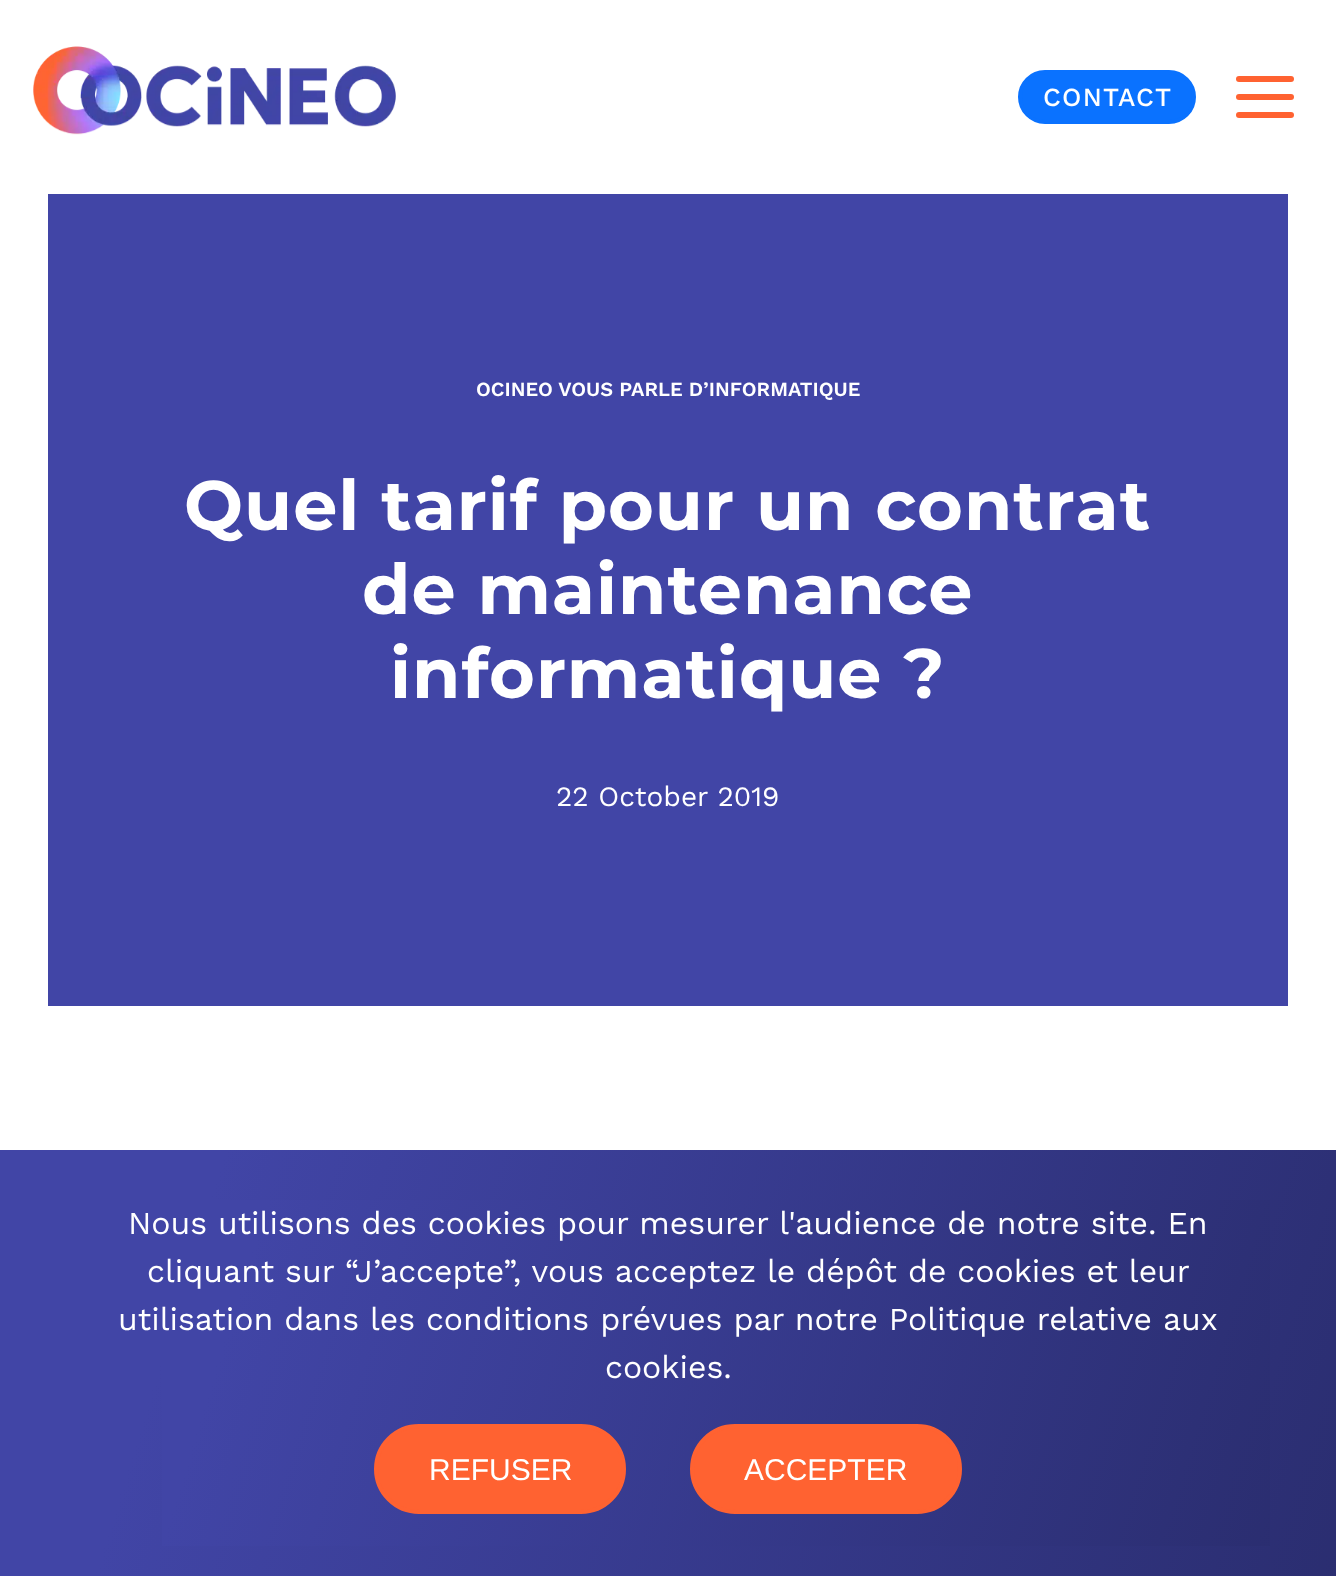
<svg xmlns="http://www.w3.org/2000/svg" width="1336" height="1576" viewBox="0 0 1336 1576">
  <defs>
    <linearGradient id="g1" gradientUnits="userSpaceOnUse" x1="-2.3" y1="1157" x2="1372" y2="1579"><stop offset="0.15" stop-color="#4145a6"/><stop offset="1" stop-color="#2a2d6f"/></linearGradient>
    <linearGradient id="g2" gradientUnits="userSpaceOnUse" x1="69" y1="1189" x2="1297" y2="1566"><stop offset="0.15" stop-color="#4145a6"/><stop offset="1" stop-color="#2a2d6f"/></linearGradient>
  </defs>
  <rect width="100%" height="100%" fill="#ffffff"/>
  <image x="33" y="46" width="363" height="89" href="img1.png"/>
  <rect x="1020" y="72" width="174" height="50" rx="25" fill="#0a72ff" stroke="#0a72ff" stroke-width="4"/>
  <text x="1043" y="106" font-family="Work Sans" font-size="26" font-weight="500" letter-spacing="1.25" fill="#ffffff">CONTACT</text>
  <rect x="1236" y="76" width="58" height="6" rx="3" fill="#ff6231"/>
  <rect x="1236" y="94" width="58" height="6" rx="3" fill="#ff6231"/>
  <rect x="1236" y="112" width="58" height="6" rx="3" fill="#ff6231"/>
  <rect x="48" y="194" width="1240" height="812" fill="#4145a6"/>
  <text x="476" y="396" font-family="Work Sans" font-size="20" font-weight="600" fill="#ffffff">OCINEO VOUS PARLE D’INFORMATIQUE</text>
  <text x="184" y="530" font-family="Montserrat" font-size="70" font-weight="bold" letter-spacing="1" fill="#ffffff">Quel tarif pour un contrat</text>
  <text x="362" y="614" font-family="Montserrat" font-size="70" font-weight="bold" letter-spacing="1" fill="#ffffff">de maintenance</text>
  <text x="390" y="698" font-family="Montserrat" font-size="70" font-weight="bold" letter-spacing="1" fill="#ffffff">informatique ?</text>
  <text x="556" y="806" font-family="Work Sans" font-size="28" fill="#ffffff">22 October 2019</text>
  <rect x="0" y="1150" width="1336" height="426" fill="url(#g1)"/>
  <rect x="162" y="1200" width="1108" height="346" fill="url(#g2)"/>
  <text x="128" y="1234" font-family="Work Sans" font-size="32" fill="#ffffff">Nous utilisons des cookies pour mesurer l'audience de notre site. En</text>
  <text x="147" y="1282" font-family="Work Sans" font-size="32" fill="#ffffff">cliquant sur “J’accepte”, vous acceptez le dépôt de cookies et leur</text>
  <text x="118" y="1330" font-family="Work Sans" font-size="32" fill="#ffffff">utilisation dans les conditions prévues par notre Politique relative aux</text>
  <text x="605" y="1378" font-family="Work Sans" font-size="32" fill="#ffffff">cookies.</text>
  <rect x="376" y="1426" width="248" height="86" rx="43" fill="#ff6231" stroke="#ff6231" stroke-width="4"/>
  <text x="429" y="1480" font-family="Liberation Sans" font-size="30" fill="#ffffff">REFUSER</text>
  <rect x="692" y="1426" width="268" height="86" rx="43" fill="#ff6231" stroke="#ff6231" stroke-width="4"/>
  <text x="744" y="1480" font-family="Liberation Sans" font-size="30" fill="#ffffff">ACCEPTER</text>
</svg>
